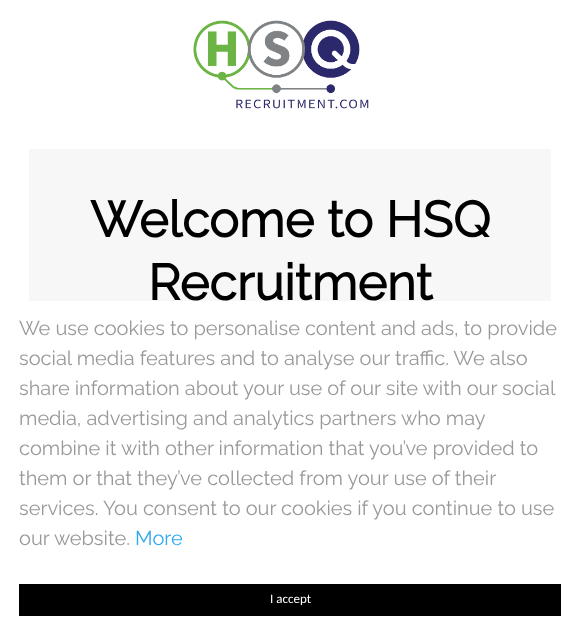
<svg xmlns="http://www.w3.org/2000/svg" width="580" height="641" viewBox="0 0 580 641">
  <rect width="100%" height="100%" fill="#ffffff"/>
  <image x="193" y="20" width="176" height="89" href="img1.png"/>
  <rect x="29" y="149" width="522" height="152" fill="#f7f7f7"/>
  <text x="90" y="237" font-family="Raleway" font-size="50" font-weight="bold" fill="#000000">Welcome to HSQ</text>
  <text x="148" y="300" font-family="Raleway" font-size="50" font-weight="bold" fill="#000000">Recruitment</text>
  <text x="19" y="335" font-family="Raleway" font-size="20" font-weight="100" fill="#999999">We use cookies to personalise content and ads, to provide</text>
  <text x="19" y="365" font-family="Raleway" font-size="20" font-weight="100" fill="#999999">social media features and to analyse our traffic. We also</text>
  <text x="19" y="395" font-family="Raleway" font-size="20" font-weight="100" fill="#999999">share information about your use of our site with our social</text>
  <text x="19" y="425" font-family="Raleway" font-size="20" font-weight="100" fill="#999999">media, advertising and analytics partners who may</text>
  <text x="19" y="455" font-family="Raleway" font-size="20" font-weight="100" fill="#999999">combine it with other information that you’ve provided to</text>
  <text x="19" y="485" font-family="Raleway" font-size="20" font-weight="100" fill="#999999">them or that they’ve collected from your use of their</text>
  <text x="19" y="515" font-family="Raleway" font-size="20" font-weight="100" fill="#999999">services. You consent to our cookies if you continue to use</text>
  <text x="19" y="545" font-family="Raleway" font-size="20" font-weight="100" fill="#999999">our website.</text>
  <text x="135" y="545" font-family="Raleway" font-size="20" font-weight="100" fill="#31a8f0">More</text>
  <rect x="19" y="584" width="542" height="32" fill="#000000"/>
  <text x="270" y="603" font-family="Carlito" font-size="13" fill="#ffffff">I accept</text>
</svg>
